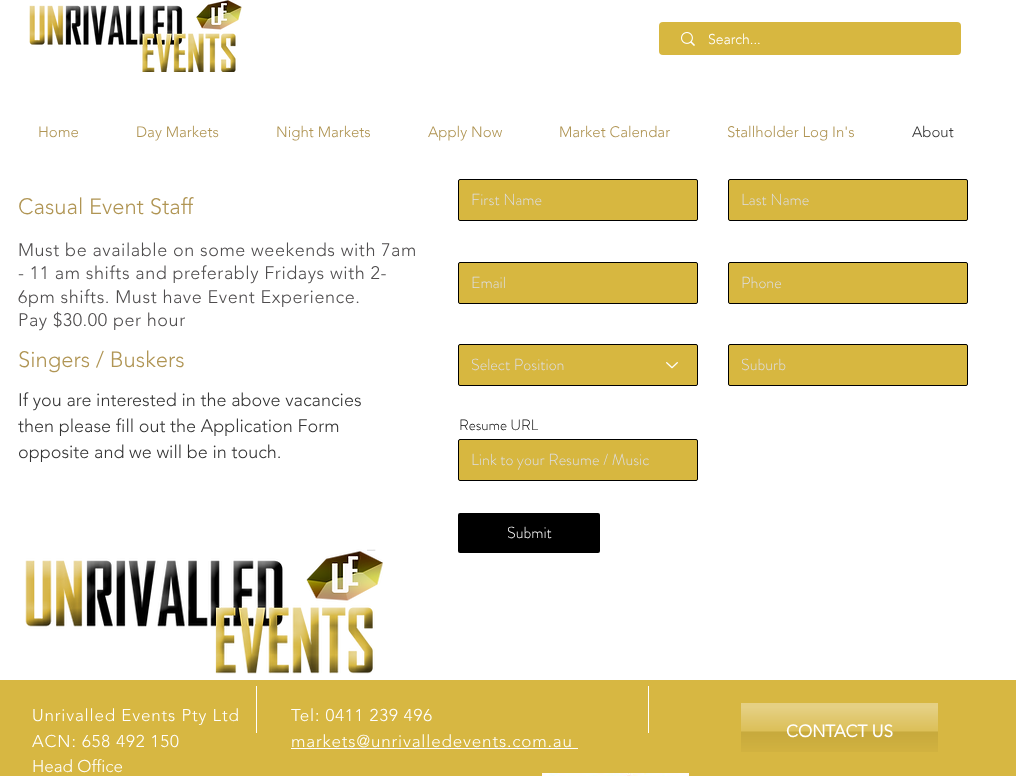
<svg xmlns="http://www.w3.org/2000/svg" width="1016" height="776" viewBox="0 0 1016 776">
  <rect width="100%" height="100%" fill="#ffffff"/>
  <image x="29" y="0" width="213" height="72" href="img1.png"/>
  <rect x="659" y="22" width="302" height="33" rx="4" fill="#d7b740"/>
  <image x="681" y="32" width="14" height="14" href="img2.png"/>
  <text x="708" y="44" font-family="'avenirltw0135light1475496'" font-size="14" font-weight="300" fill="#ffffff">Search...</text>
  <text x="38" y="137" font-family="'avenirltw0135light1475496'" font-size="15" font-weight="300" fill="#b09554">Home</text>
  <text x="136" y="137" font-family="'avenirltw0135light1475496'" font-size="15" font-weight="300" fill="#b09554">Day Markets</text>
  <text x="276" y="137" font-family="'avenirltw0135light1475496'" font-size="15" font-weight="300" fill="#b09554">Night Markets</text>
  <text x="428" y="137" font-family="'avenirltw0135light1475496'" font-size="15" font-weight="300" fill="#b09554">Apply Now</text>
  <text x="559" y="137" font-family="'avenirltw0135light1475496'" font-size="15" font-weight="300" fill="#b09554">Market Calendar</text>
  <text x="727" y="137" font-family="'avenirltw0135light1475496'" font-size="15" font-weight="300" fill="#b09554">Stallholder Log In's</text>
  <text x="912" y="137" font-family="'avenirltw0135light1475496'" font-size="15" font-weight="300" fill="#333333">About</text>
  <text x="18" y="214" font-family="'avenirltw0135light1475496'" font-size="22" font-weight="300" fill="#b09554">Casual Event Staff</text>
  <rect x="458.5" y="179.5" width="239" height="41" rx="1.5" fill="#d7b740" stroke="#000000"/>
  <text x="471" y="205" font-family="'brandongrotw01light'" font-size="16" font-weight="300" fill="#dddee5">First Name</text>
  <rect x="728.5" y="179.5" width="239" height="41" rx="1.5" fill="#d7b740" stroke="#000000"/>
  <text x="741" y="205" font-family="'brandongrotw01light'" font-size="16" font-weight="300" fill="#dddee5">Last Name</text>
  <rect x="458.5" y="262.5" width="239" height="41" rx="1.5" fill="#d7b740" stroke="#000000"/>
  <text x="471" y="288" font-family="'brandongrotw01light'" font-size="16" font-weight="300" fill="#dddee5">Email</text>
  <rect x="728.5" y="262.5" width="239" height="41" rx="1.5" fill="#d7b740" stroke="#000000"/>
  <text x="741" y="288" font-family="'brandongrotw01light'" font-size="16" font-weight="300" fill="#dddee5">Phone</text>
  <rect x="458.5" y="344.5" width="239" height="41" rx="1.5" fill="#d7b740" stroke="#000000"/>
  <text x="471" y="370" font-family="'brandongrotw01light'" font-size="16" font-weight="300" fill="#dddee5">Select Position</text>
  <image x="666" y="362" width="12" height="7" href="img3.png"/>
  <rect x="728.5" y="344.5" width="239" height="41" rx="1.5" fill="#d7b740" stroke="#000000"/>
  <text x="741" y="370" font-family="'brandongrotw01light'" font-size="16" font-weight="300" fill="#dddee5">Suburb</text>
  <text x="459" y="430" font-family="'brandongrotw01light'" font-size="15" font-weight="300" fill="#000000">Resume URL</text>
  <rect x="458.5" y="439.5" width="239" height="41" rx="1.5" fill="#d7b740" stroke="#000000"/>
  <text x="471" y="465" font-family="'brandongrotw01light'" font-size="16" font-weight="300" fill="#dddee5">Link to your Resume / Music</text>
  <rect x="458" y="513" width="142" height="40" rx="2" fill="#000000"/>
  <text x="507" y="538" font-family="'brandongrotw01light'" font-size="16" font-weight="300" fill="#ffffff">Submit</text>
  <text x="18" y="256" font-family="'avenirltw0135light1475496'" font-size="18" font-weight="300" letter-spacing="0.55" fill="#4f4d4e">Must be available on some weekends with 7am</text>
  <text x="18" y="279" font-family="'avenirltw0135light1475496'" font-size="18" font-weight="300" letter-spacing="0.55" fill="#4f4d4e">- 11 am shifts and preferably Fridays with 2-</text>
  <text x="18" y="303" font-family="'avenirltw0135light1475496'" font-size="18" font-weight="300" letter-spacing="0.55" fill="#4f4d4e">6pm shifts. Must have Event Experience.</text>
  <text x="18" y="326" font-family="'avenirltw0135light1475496'" font-size="18" font-weight="300" letter-spacing="0.55" fill="#4f4d4e">Pay $30.00 per hour</text>
  <text x="18" y="367" font-family="'avenirltw0135light1475496'" font-size="22" font-weight="300" fill="#b09554">Singers / Buskers</text>
  <text x="18" y="406" font-family="'avenirltw0135light1475496'" font-size="18" font-weight="300" fill="#333333">If you are interested in the above vacancies</text>
  <text x="18" y="432" font-family="'avenirltw0135light1475496'" font-size="18" font-weight="300" fill="#333333">then please fill out the Application Form</text>
  <text x="18" y="458" font-family="'avenirltw0135light1475496'" font-size="18" font-weight="300" fill="#333333">opposite and we will be in touch.</text>
  <image x="25" y="549" width="358" height="125" href="img4.png"/>
  <rect x="0" y="680" width="1016" height="96" fill="#d7b742"/>
  <text x="32" y="721" font-family="'avenirltw0135light1475496'" font-size="17" font-weight="300" letter-spacing="0.85" fill="#ffffff">Unrivalled Events Pty Ltd</text>
  <text x="32" y="747" font-family="'avenirltw0135light1475496'" font-size="17" font-weight="300" letter-spacing="0.85" fill="#ffffff">ACN: 658 492 150</text>
  <text x="32" y="772" font-family="'avenirltw0135light1475496'" font-size="17" font-weight="300" fill="#ffffff">Head Office</text>
  <rect x="256" y="686" width="1" height="47" fill="#ffffff"/>
  <text x="291" y="721" font-family="'avenirltw0135light1475496'" font-size="17" font-weight="300" letter-spacing="0.85" fill="#ffffff">Tel: 0411 239 496</text>
  <text x="291" y="747" font-family="'avenirltw0135light1475496'" font-size="17" font-weight="300" letter-spacing="0.85" fill="#ffffff">markets@unrivalledevents.com.au</text>
  <rect x="291" y="748" width="287" height="1" fill="#ffffff"/>
  <rect x="648" y="686" width="1" height="47" fill="#ffffff"/>
  <image x="741" y="703" width="197" height="49" href="img5.png"/>
  <text x="786" y="737" font-family="'avenirltw0135light1475496'" font-size="17" font-weight="bold" fill="#ffffff">CONTACT US</text>
  <image x="542" y="773" width="147" height="3" href="img6.png"/>
</svg>
